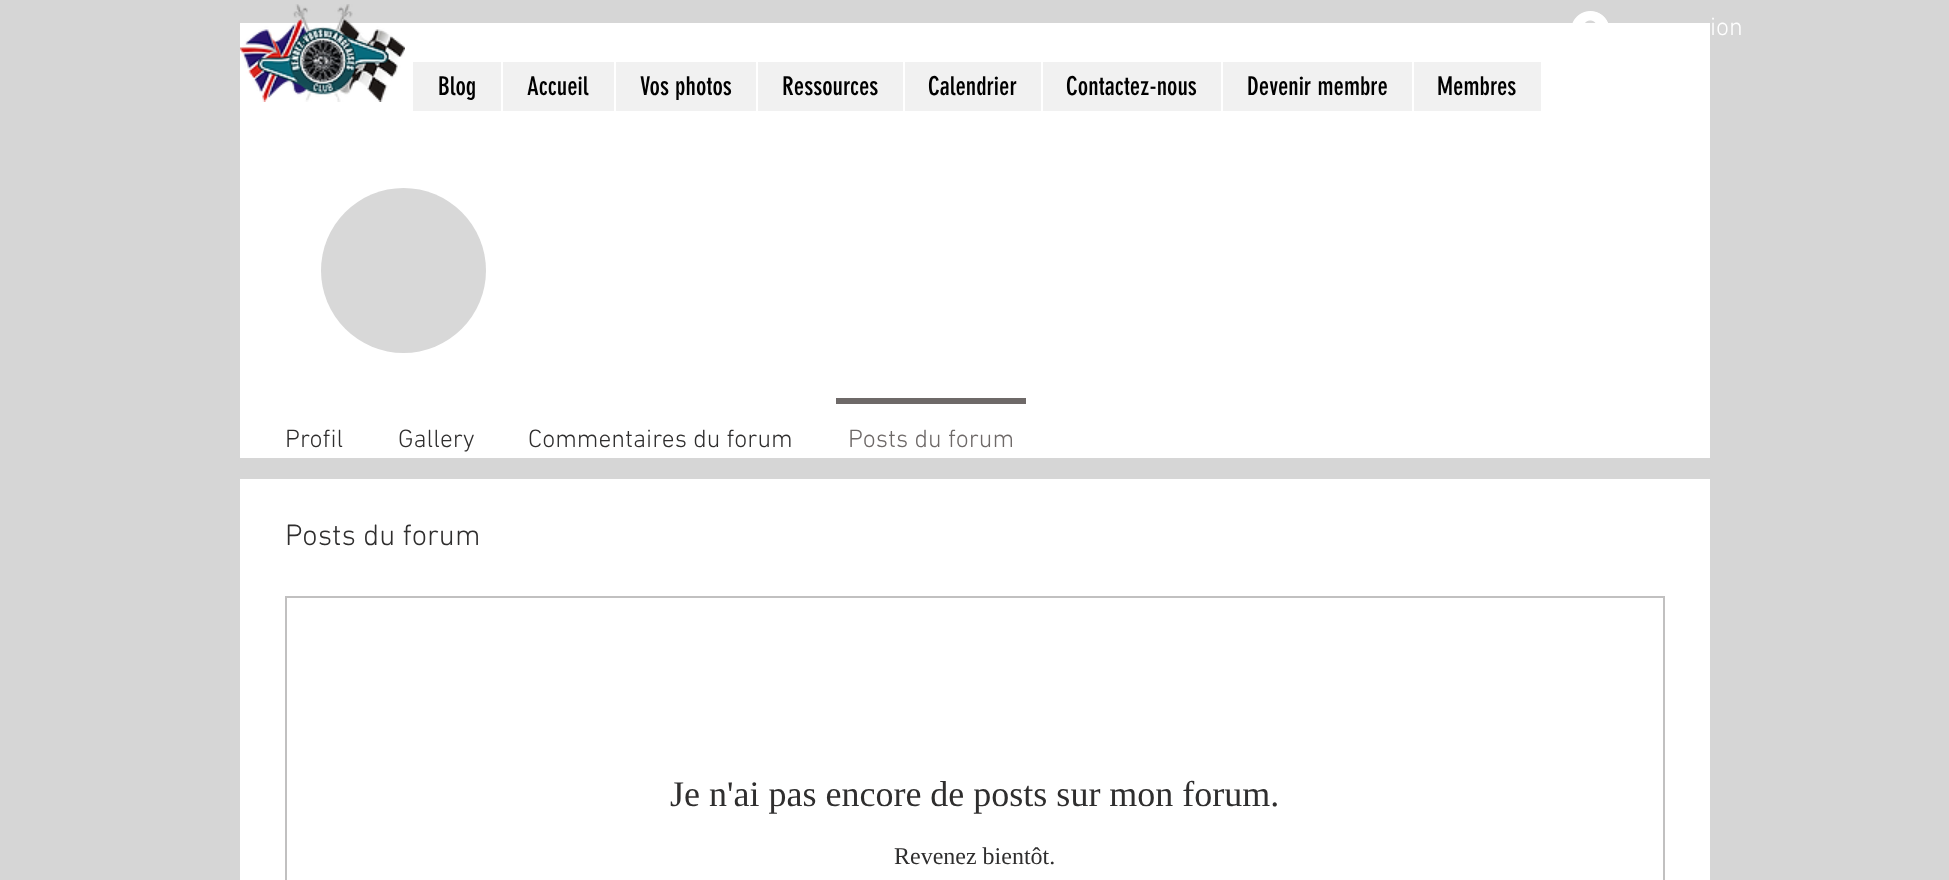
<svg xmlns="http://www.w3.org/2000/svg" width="1949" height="880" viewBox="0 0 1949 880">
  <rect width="100%" height="100%" fill="#d6d6d6"/>
  <rect x="240" y="23" width="1470" height="435" fill="#ffffff"/>
  <image x="240" y="4" width="165" height="98" href="img1.png"/>
  <image x="1572" y="11" width="36" height="12" href="img2.png"/>
  <text x="1710" y="35" font-family="'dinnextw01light'" font-size="25.5" font-weight="300" fill="#ffffff">ion</text>
  <rect x="413" y="62" width="1128" height="49" fill="#f1f1f1"/>
  <text x="438" y="95" font-family="'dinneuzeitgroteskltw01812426'" font-size="25.5" fill="#000000">Blog</text>
  <rect x="501" y="62" width="2" height="49" fill="#ffffff"/>
  <text x="527" y="95" font-family="'dinneuzeitgroteskltw01812426'" font-size="25.5" fill="#000000">Accueil</text>
  <rect x="614" y="62" width="2" height="49" fill="#ffffff"/>
  <text x="640" y="95" font-family="'dinneuzeitgroteskltw01812426'" font-size="25.5" fill="#000000">Vos photos</text>
  <rect x="756" y="62" width="2" height="49" fill="#ffffff"/>
  <text x="782" y="95" font-family="'dinneuzeitgroteskltw01812426'" font-size="25.5" fill="#000000">Ressources</text>
  <rect x="903" y="62" width="2" height="49" fill="#ffffff"/>
  <text x="928" y="95" font-family="'dinneuzeitgroteskltw01812426'" font-size="25.5" fill="#000000">Calendrier</text>
  <rect x="1041" y="62" width="2" height="49" fill="#ffffff"/>
  <text x="1066" y="95" font-family="'dinneuzeitgroteskltw01812426'" font-size="25.5" fill="#000000">Contactez-nous</text>
  <rect x="1221" y="62" width="2" height="49" fill="#ffffff"/>
  <text x="1247" y="95" font-family="'dinneuzeitgroteskltw01812426'" font-size="25.5" fill="#000000">Devenir membre</text>
  <rect x="1412" y="62" width="2" height="49" fill="#ffffff"/>
  <text x="1437" y="95" font-family="'dinneuzeitgroteskltw01812426'" font-size="25.5" fill="#000000">Membres</text>
  <circle cx="403.5" cy="270.5" r="82.5" fill="#d8d8d8"/>
  <text x="285" y="447" font-family="'dinnextw01light'" font-size="25.5" font-weight="300" fill="#2f2e2e">Profil</text>
  <text x="398" y="447" font-family="'dinnextw01light'" font-size="25.5" font-weight="300" fill="#2f2e2e">Gallery</text>
  <text x="528" y="447" font-family="'dinnextw01light'" font-size="25.5" font-weight="300" fill="#2f2e2e">Commentaires du forum</text>
  <rect x="836" y="398" width="190" height="6" fill="#6e6968"/>
  <text x="848" y="447" font-family="'dinnextw01light'" font-size="25.5" font-weight="300" fill="#6e6968">Posts du forum</text>
  <rect x="240" y="479" width="1470" height="401" fill="#ffffff"/>
  <text x="285" y="545" font-family="'dinnextw01light'" font-size="30" font-weight="300" fill="#2f2e2e">Posts du forum</text>
  <rect x="286" y="597" width="1378" height="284" fill="none" stroke="#c1c0c0" stroke-width="2"/>
  <text x="670" y="806" font-family="Liberation Serif" font-size="36" fill="#2f2e2e">Je n'ai pas encore de posts sur mon forum.</text>
  <text x="894" y="864" font-family="Liberation Serif" font-size="24" fill="#2f2e2e">Revenez bientôt.</text>
</svg>
